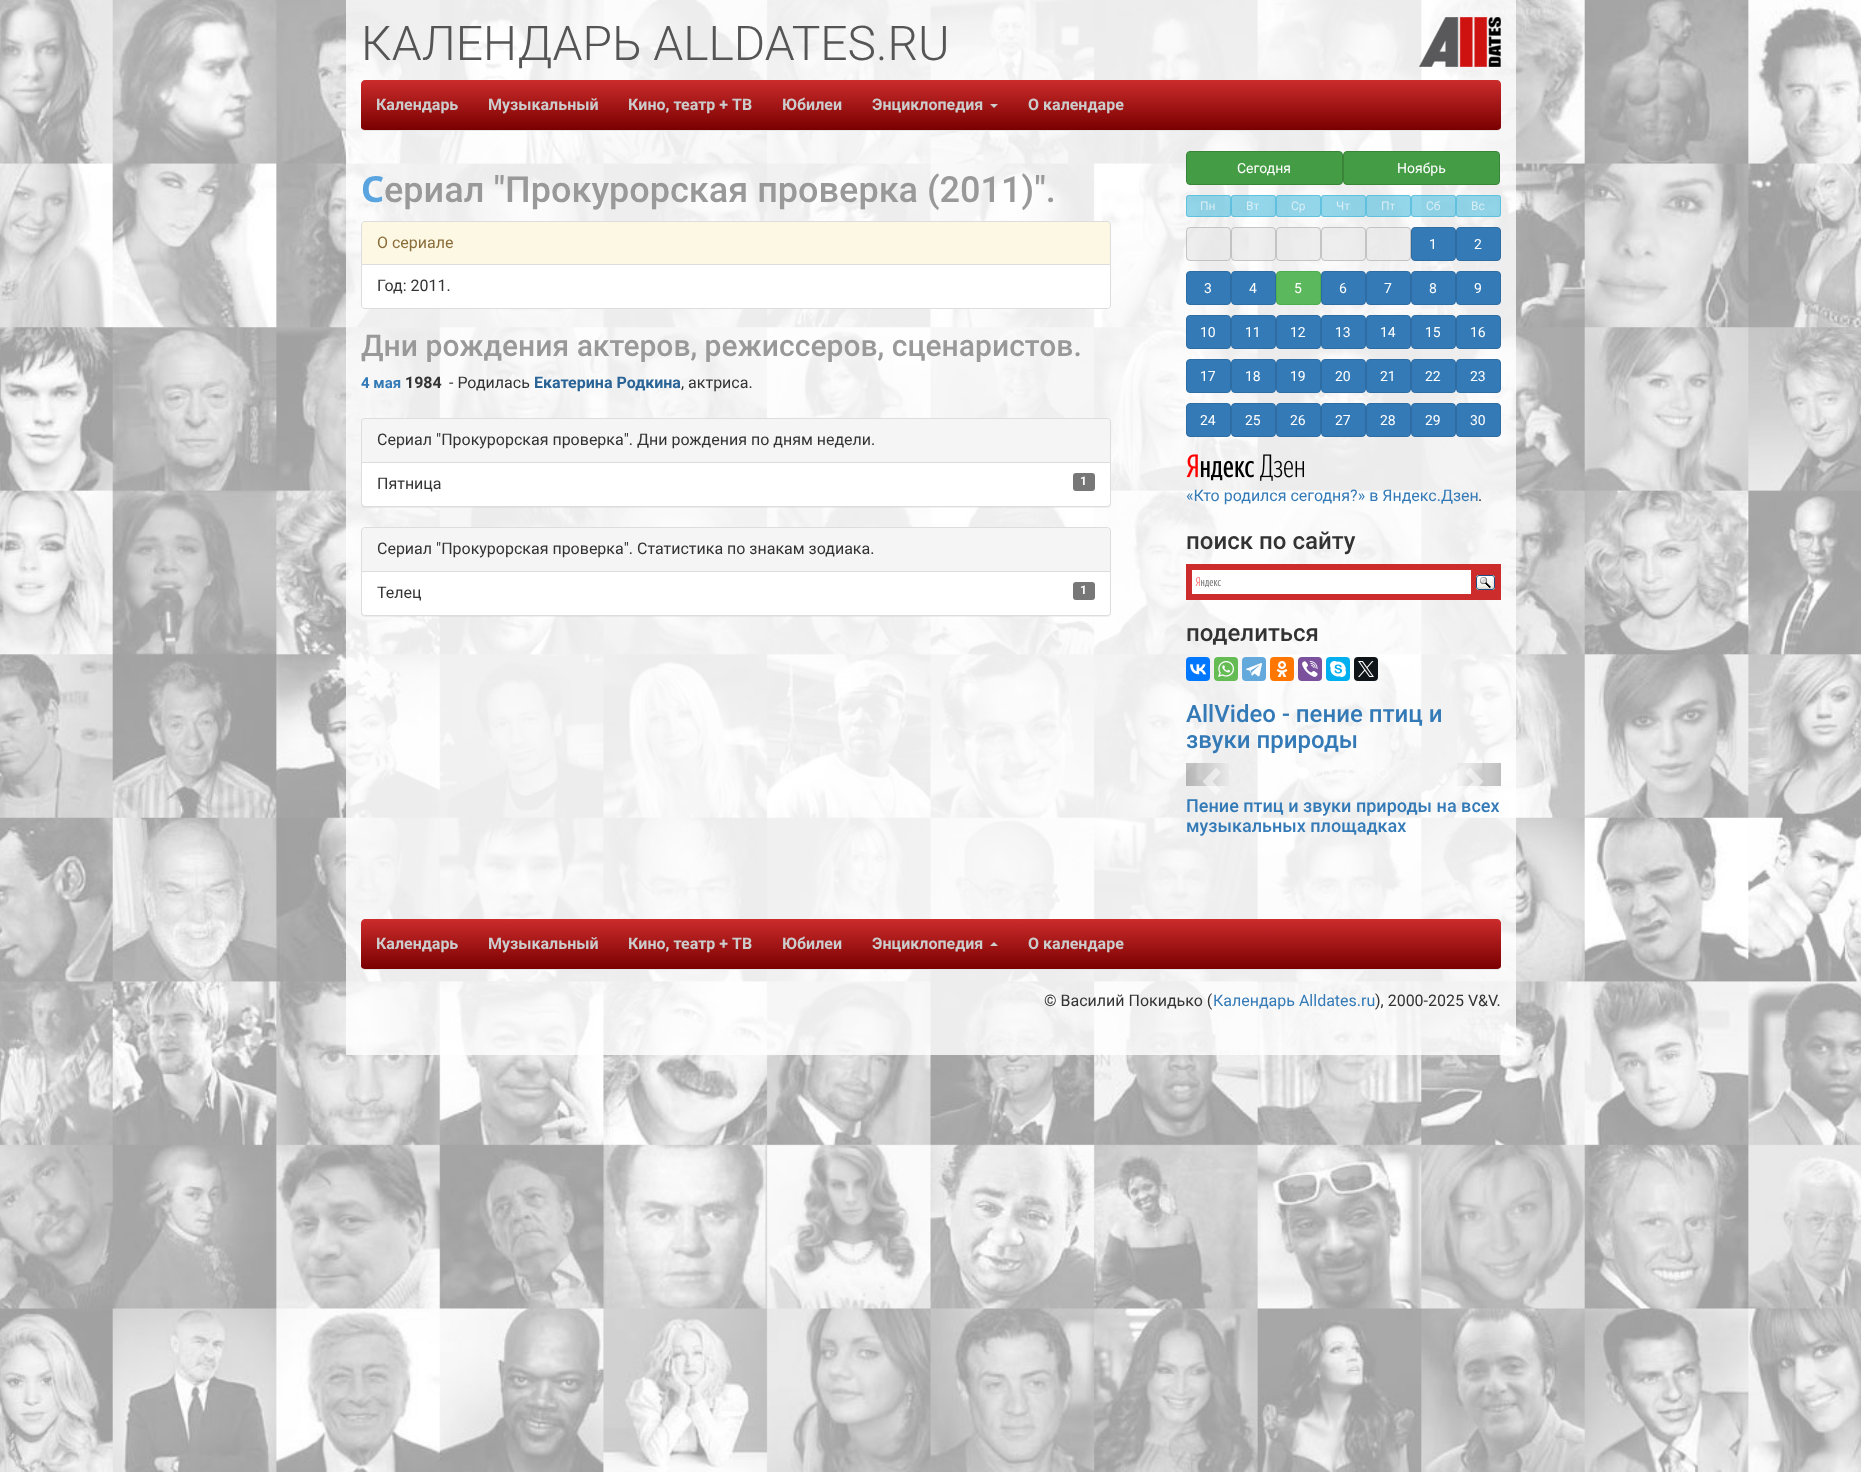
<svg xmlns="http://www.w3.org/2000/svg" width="1861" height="1472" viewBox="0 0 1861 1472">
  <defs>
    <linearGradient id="g1" gradientUnits="userSpaceOnUse" x1="931" y1="80" x2="931" y2="130"><stop offset="0" stop-color="#cc2c2c"/><stop offset="1" stop-color="#7a0000"/></linearGradient>
    <filter id="blur1" x="-50%" y="-200%" width="200%" height="500%"><feGaussianBlur stdDeviation="0.5"/></filter>
    <linearGradient id="g2" gradientUnits="userSpaceOnUse" x1="1186" y1="775" x2="1233" y2="775"><stop offset="0" stop-color="#000000" stop-opacity="0.25"/><stop offset="1" stop-color="#000000" stop-opacity="0"/></linearGradient>
    <linearGradient id="g3" gradientUnits="userSpaceOnUse" x1="1453" y1="775" x2="1501" y2="775"><stop offset="0" stop-color="#000000" stop-opacity="0"/><stop offset="1" stop-color="#000000" stop-opacity="0.25"/></linearGradient>
    <linearGradient id="g4" gradientUnits="userSpaceOnUse" x1="931" y1="919" x2="931" y2="969"><stop offset="0" stop-color="#cc2c2c"/><stop offset="1" stop-color="#7a0000"/></linearGradient>
  </defs>
  <rect width="100%" height="100%" fill="#ffffff"/>
  <image x="0" y="0" width="1861" height="1472" href="img1.png"/>
  <rect x="346" y="0" width="1170" height="1055" fill="#ffffff" fill-opacity="0.8"/>
  <text x="361" y="60" font-family="Roboto" font-size="48" font-weight="300" fill="#555555">КАЛЕНДАРЬ ALLDATES.RU</text>
  <image x="1419" y="17" width="82" height="50" href="img2.png"/>
  <path d="M365 80H1497C1499 80 1501 82 1501 84V127C1501 129 1499 130 1497 130H365C363 130 361 129 361 127V84C361 82 363 80 365 80Z" fill="url(#g1)"/>
  <rect x="363" y="130" width="1136" height="1" fill="#e7e7e7"/>
  <text x="376" y="110" font-family="Roboto" font-size="16" font-weight="bold" fill="#cccccc">Календарь</text>
  <text x="488" y="110" font-family="Roboto" font-size="16" font-weight="bold" fill="#cccccc">Музыкальный</text>
  <text x="628" y="110" font-family="Roboto" font-size="16" font-weight="bold" fill="#cccccc">Кино, театр + ТВ</text>
  <text x="782" y="110" font-family="Roboto" font-size="16" font-weight="bold" fill="#cccccc">Юбилеи</text>
  <text x="872" y="110" font-family="Roboto" font-size="16" font-weight="bold" fill="#cccccc">Энциклопедия</text>
  <path d="M990 104H998L994 108Z" fill="#cccccc"/>
  <text x="1028" y="110" font-family="Roboto" font-size="16" font-weight="bold" fill="#cccccc">О календаре</text>
  <text x="361" y="202" font-family="Noto Sans" font-size="36" font-weight="bold" fill="#5aa4e0">С</text>
  <text x="384" y="202" font-family="Roboto" font-size="36" font-weight="500" fill="#999999">ериал "Прокурорская проверка (2011)".</text>
  <path d="M365 221.5H1107C1109 221.5 1110.5 223 1110.5 225V264.5H361.5V225C361.5 223 363 221.5 365 221.5Z" fill="#fcf8e3" stroke="#dddddd"/>
  <text x="377" y="248" font-family="Roboto" font-size="16" fill="#8a6d3b">О сериале</text>
  <path d="M361.5 264.5H1110.5V305C1110.5 307 1109 308.5 1107 308.5H365C363 308.5 361.5 307 361.5 305Z" fill="#ffffff" stroke="#dddddd"/>
  <text x="377" y="291" font-family="Roboto" font-size="16" fill="#333333">Год: 2011.</text>
  <text x="361" y="356" font-family="Roboto" font-size="30" font-weight="500" fill="#999999">Дни рождения актеров, режиссеров, сценаристов.</text>
  <text x="361" y="388" font-family="Roboto" font-size="15" font-weight="bold" fill="#337ab7">4 мая</text>
  <text x="405" y="388" font-family="Roboto" font-size="16" font-weight="bold" fill="#333333">1984</text>
  <text x="449" y="388" font-family="Roboto" font-size="16" fill="#333333">- Родилась</text>
  <text x="534" y="388" font-family="Roboto" font-size="16" font-weight="bold" fill="#2a6496">Екатерина Родкина</text>
  <text x="681" y="388" font-family="Roboto" font-size="16" fill="#333333">, актриса.</text>
  <rect x="361" y="419" width="750" height="89" rx="4" fill="#000000" fill-opacity="0.05" filter="url(#blur1)"/>
  <rect x="361.5" y="418.5" width="749" height="88" rx="3.5" fill="none" stroke="#dddddd"/>
  <path d="M365 419H1107C1108.5 419 1110 420.5 1110 422V463H362V422C362 420.5 363.5 419 365 419Z" fill="#f5f5f5"/>
  <rect x="362" y="462" width="748" height="1" fill="#dddddd"/>
  <text x="377" y="445" font-family="Roboto" font-size="16" fill="#333333">Сериал "Прокурорская проверка". Дни рождения по дням недели.</text>
  <path d="M362 463H1110V503C1110 504.5 1108.5 506 1107 506H365C363.5 506 362 504.5 362 503Z" fill="#ffffff"/>
  <text x="377" y="489" font-family="Roboto" font-size="16" fill="#333333">Пятница</text>
  <rect x="1073" y="473" width="22" height="18" rx="3" fill="#777777"/>
  <text x="1080" y="485" font-family="Roboto" font-size="12" font-weight="bold" fill="#ffffff">1</text>
  <rect x="361" y="528" width="750" height="89" rx="4" fill="#000000" fill-opacity="0.05" filter="url(#blur1)"/>
  <rect x="361.5" y="527.5" width="749" height="88" rx="3.5" fill="none" stroke="#dddddd"/>
  <path d="M365 528H1107C1108.5 528 1110 529.5 1110 531V572H362V531C362 529.5 363.5 528 365 528Z" fill="#f5f5f5"/>
  <rect x="362" y="571" width="748" height="1" fill="#dddddd"/>
  <text x="377" y="554" font-family="Roboto" font-size="16" fill="#333333">Сериал "Прокурорская проверка". Статистика по знакам зодиака.</text>
  <path d="M362 572H1110V612C1110 613.5 1108.5 615 1107 615H365C363.5 615 362 613.5 362 612Z" fill="#ffffff"/>
  <text x="377" y="598" font-family="Roboto" font-size="16" fill="#333333">Телец</text>
  <rect x="1073" y="582" width="22" height="18" rx="3" fill="#777777"/>
  <text x="1080" y="594" font-family="Roboto" font-size="12" font-weight="bold" fill="#ffffff">1</text>
  <rect x="1186.5" y="151.5" width="156" height="33" rx="3.5" fill="#449d44" stroke="#398439"/>
  <text x="1237" y="173" font-family="Roboto" font-size="14" fill="#ffffff">Сегодня</text>
  <rect x="1343.5" y="151.5" width="156" height="33" rx="3.5" fill="#449d44" stroke="#398439"/>
  <text x="1397" y="173" font-family="Roboto" font-size="14" fill="#ffffff">Ноябрь</text>
  <rect x="1186" y="195" width="45" height="22" rx="3" fill="#5bc0de" fill-opacity="0.65"/>
  <rect x="1186.5" y="195.5" width="44" height="21" rx="2.5" fill="none" stroke="#46b8da" stroke-opacity="0.65"/>
  <text x="1200" y="210" font-family="Roboto" font-size="12" fill="#d8eef5">Пн</text>
  <rect x="1231" y="195" width="45" height="22" rx="3" fill="#5bc0de" fill-opacity="0.65"/>
  <rect x="1231.5" y="195.5" width="44" height="21" rx="2.5" fill="none" stroke="#46b8da" stroke-opacity="0.65"/>
  <text x="1246" y="210" font-family="Roboto" font-size="12" fill="#d8eef5">Вт</text>
  <rect x="1276" y="195" width="45" height="22" rx="3" fill="#5bc0de" fill-opacity="0.65"/>
  <rect x="1276.5" y="195.5" width="44" height="21" rx="2.5" fill="none" stroke="#46b8da" stroke-opacity="0.65"/>
  <text x="1291" y="210" font-family="Roboto" font-size="12" fill="#d8eef5">Ср</text>
  <rect x="1321" y="195" width="45" height="22" rx="3" fill="#5bc0de" fill-opacity="0.65"/>
  <rect x="1321.5" y="195.5" width="44" height="21" rx="2.5" fill="none" stroke="#46b8da" stroke-opacity="0.65"/>
  <text x="1336" y="210" font-family="Roboto" font-size="12" fill="#d8eef5">Чт</text>
  <rect x="1366" y="195" width="45" height="22" rx="3" fill="#5bc0de" fill-opacity="0.65"/>
  <rect x="1366.5" y="195.5" width="44" height="21" rx="2.5" fill="none" stroke="#46b8da" stroke-opacity="0.65"/>
  <text x="1381" y="210" font-family="Roboto" font-size="12" fill="#d8eef5">Пт</text>
  <rect x="1411" y="195" width="45" height="22" rx="3" fill="#5bc0de" fill-opacity="0.65"/>
  <rect x="1411.5" y="195.5" width="44" height="21" rx="2.5" fill="none" stroke="#46b8da" stroke-opacity="0.65"/>
  <text x="1426" y="210" font-family="Roboto" font-size="12" fill="#d8eef5">Сб</text>
  <rect x="1456" y="195" width="45" height="22" rx="3" fill="#5bc0de" fill-opacity="0.65"/>
  <rect x="1456.5" y="195.5" width="44" height="21" rx="2.5" fill="none" stroke="#46b8da" stroke-opacity="0.65"/>
  <text x="1471" y="210" font-family="Roboto" font-size="12" fill="#d8eef5">Вс</text>
  <rect x="1186" y="227" width="45" height="34" rx="4" fill="#e6e6e6" fill-opacity="0.65"/>
  <rect x="1186.5" y="227.5" width="44" height="33" rx="3.5" fill="none" stroke="#adadad" stroke-opacity="0.65"/>
  <rect x="1231" y="227" width="45" height="34" rx="4" fill="#e6e6e6" fill-opacity="0.65"/>
  <rect x="1231.5" y="227.5" width="44" height="33" rx="3.5" fill="none" stroke="#adadad" stroke-opacity="0.65"/>
  <rect x="1276" y="227" width="45" height="34" rx="4" fill="#e6e6e6" fill-opacity="0.65"/>
  <rect x="1276.5" y="227.5" width="44" height="33" rx="3.5" fill="none" stroke="#adadad" stroke-opacity="0.65"/>
  <rect x="1321" y="227" width="45" height="34" rx="4" fill="#e6e6e6" fill-opacity="0.65"/>
  <rect x="1321.5" y="227.5" width="44" height="33" rx="3.5" fill="none" stroke="#adadad" stroke-opacity="0.65"/>
  <rect x="1366" y="227" width="45" height="34" rx="4" fill="#e6e6e6" fill-opacity="0.65"/>
  <rect x="1366.5" y="227.5" width="44" height="33" rx="3.5" fill="none" stroke="#adadad" stroke-opacity="0.65"/>
  <rect x="1411.5" y="227.5" width="44" height="33" rx="3.5" fill="#337ab7" stroke="#2e6da4"/>
  <text x="1429" y="249" font-family="Roboto" font-size="14" fill="#ffffff">1</text>
  <rect x="1456.5" y="227.5" width="44" height="33" rx="3.5" fill="#337ab7" stroke="#2e6da4"/>
  <text x="1474" y="249" font-family="Roboto" font-size="14" fill="#ffffff">2</text>
  <rect x="1186.5" y="271.5" width="44" height="33" rx="3.5" fill="#337ab7" stroke="#2e6da4"/>
  <text x="1204" y="293" font-family="Roboto" font-size="14" fill="#ffffff">3</text>
  <rect x="1231.5" y="271.5" width="44" height="33" rx="3.5" fill="#337ab7" stroke="#2e6da4"/>
  <text x="1249" y="293" font-family="Roboto" font-size="14" fill="#ffffff">4</text>
  <rect x="1276.5" y="271.5" width="44" height="33" rx="3.5" fill="#5cb85c" stroke="#4cae4c"/>
  <text x="1294" y="293" font-family="Roboto" font-size="14" fill="#ffffff">5</text>
  <rect x="1321.5" y="271.5" width="44" height="33" rx="3.5" fill="#337ab7" stroke="#2e6da4"/>
  <text x="1339" y="293" font-family="Roboto" font-size="14" fill="#ffffff">6</text>
  <rect x="1366.5" y="271.5" width="44" height="33" rx="3.5" fill="#337ab7" stroke="#2e6da4"/>
  <text x="1384" y="293" font-family="Roboto" font-size="14" fill="#ffffff">7</text>
  <rect x="1411.5" y="271.5" width="44" height="33" rx="3.5" fill="#337ab7" stroke="#2e6da4"/>
  <text x="1429" y="293" font-family="Roboto" font-size="14" fill="#ffffff">8</text>
  <rect x="1456.5" y="271.5" width="44" height="33" rx="3.5" fill="#337ab7" stroke="#2e6da4"/>
  <text x="1474" y="293" font-family="Roboto" font-size="14" fill="#ffffff">9</text>
  <rect x="1186.5" y="315.5" width="44" height="33" rx="3.5" fill="#337ab7" stroke="#2e6da4"/>
  <text x="1200" y="337" font-family="Roboto" font-size="14" fill="#ffffff">10</text>
  <rect x="1231.5" y="315.5" width="44" height="33" rx="3.5" fill="#337ab7" stroke="#2e6da4"/>
  <text x="1245" y="337" font-family="Roboto" font-size="14" fill="#ffffff">11</text>
  <rect x="1276.5" y="315.5" width="44" height="33" rx="3.5" fill="#337ab7" stroke="#2e6da4"/>
  <text x="1290" y="337" font-family="Roboto" font-size="14" fill="#ffffff">12</text>
  <rect x="1321.5" y="315.5" width="44" height="33" rx="3.5" fill="#337ab7" stroke="#2e6da4"/>
  <text x="1335" y="337" font-family="Roboto" font-size="14" fill="#ffffff">13</text>
  <rect x="1366.5" y="315.5" width="44" height="33" rx="3.5" fill="#337ab7" stroke="#2e6da4"/>
  <text x="1380" y="337" font-family="Roboto" font-size="14" fill="#ffffff">14</text>
  <rect x="1411.5" y="315.5" width="44" height="33" rx="3.5" fill="#337ab7" stroke="#2e6da4"/>
  <text x="1425" y="337" font-family="Roboto" font-size="14" fill="#ffffff">15</text>
  <rect x="1456.5" y="315.5" width="44" height="33" rx="3.5" fill="#337ab7" stroke="#2e6da4"/>
  <text x="1470" y="337" font-family="Roboto" font-size="14" fill="#ffffff">16</text>
  <rect x="1186.5" y="359.5" width="44" height="33" rx="3.5" fill="#337ab7" stroke="#2e6da4"/>
  <text x="1200" y="381" font-family="Roboto" font-size="14" fill="#ffffff">17</text>
  <rect x="1231.5" y="359.5" width="44" height="33" rx="3.5" fill="#337ab7" stroke="#2e6da4"/>
  <text x="1245" y="381" font-family="Roboto" font-size="14" fill="#ffffff">18</text>
  <rect x="1276.5" y="359.5" width="44" height="33" rx="3.5" fill="#337ab7" stroke="#2e6da4"/>
  <text x="1290" y="381" font-family="Roboto" font-size="14" fill="#ffffff">19</text>
  <rect x="1321.5" y="359.5" width="44" height="33" rx="3.5" fill="#337ab7" stroke="#2e6da4"/>
  <text x="1335" y="381" font-family="Roboto" font-size="14" fill="#ffffff">20</text>
  <rect x="1366.5" y="359.5" width="44" height="33" rx="3.5" fill="#337ab7" stroke="#2e6da4"/>
  <text x="1380" y="381" font-family="Roboto" font-size="14" fill="#ffffff">21</text>
  <rect x="1411.5" y="359.5" width="44" height="33" rx="3.5" fill="#337ab7" stroke="#2e6da4"/>
  <text x="1425" y="381" font-family="Roboto" font-size="14" fill="#ffffff">22</text>
  <rect x="1456.5" y="359.5" width="44" height="33" rx="3.5" fill="#337ab7" stroke="#2e6da4"/>
  <text x="1470" y="381" font-family="Roboto" font-size="14" fill="#ffffff">23</text>
  <rect x="1186.5" y="403.5" width="44" height="33" rx="3.5" fill="#337ab7" stroke="#2e6da4"/>
  <text x="1200" y="425" font-family="Roboto" font-size="14" fill="#ffffff">24</text>
  <rect x="1231.5" y="403.5" width="44" height="33" rx="3.5" fill="#337ab7" stroke="#2e6da4"/>
  <text x="1245" y="425" font-family="Roboto" font-size="14" fill="#ffffff">25</text>
  <rect x="1276.5" y="403.5" width="44" height="33" rx="3.5" fill="#337ab7" stroke="#2e6da4"/>
  <text x="1290" y="425" font-family="Roboto" font-size="14" fill="#ffffff">26</text>
  <rect x="1321.5" y="403.5" width="44" height="33" rx="3.5" fill="#337ab7" stroke="#2e6da4"/>
  <text x="1335" y="425" font-family="Roboto" font-size="14" fill="#ffffff">27</text>
  <rect x="1366.5" y="403.5" width="44" height="33" rx="3.5" fill="#337ab7" stroke="#2e6da4"/>
  <text x="1380" y="425" font-family="Roboto" font-size="14" fill="#ffffff">28</text>
  <rect x="1411.5" y="403.5" width="44" height="33" rx="3.5" fill="#337ab7" stroke="#2e6da4"/>
  <text x="1425" y="425" font-family="Roboto" font-size="14" fill="#ffffff">29</text>
  <rect x="1456.5" y="403.5" width="44" height="33" rx="3.5" fill="#337ab7" stroke="#2e6da4"/>
  <text x="1470" y="425" font-family="Roboto" font-size="14" fill="#ffffff">30</text>
  <image x="1186" y="454" width="118" height="27" href="img3.png"/>
  <text x="1186" y="501" font-family="Roboto" font-size="16" fill="#337ab7">«Кто родился сегодня?» в Яндекс.Дзен</text>
  <text x="1478" y="501" font-family="Roboto" font-size="16" fill="#333333">.</text>
  <text x="1186" y="549" font-family="Roboto" font-size="24" font-weight="500" fill="#333333">поиск по сайту</text>
  <rect x="1186" y="564" width="315" height="36" fill="#cc2c2c"/>
  <rect x="1192" y="570" width="279" height="24" fill="#ffffff"/>
  <image x="1195" y="577" width="26" height="11" href="img4.png"/>
  <image x="1476" y="575" width="19" height="15" href="img5.png"/>
  <text x="1186" y="641" font-family="Roboto" font-size="24" font-weight="500" fill="#333333">поделиться</text>
  <rect x="1186" y="657" width="24" height="24" rx="4" fill="#0077ff"/>
  <image x="1190" y="664" width="16" height="11" href="img6.png"/>
  <rect x="1214" y="657" width="24" height="24" rx="4" fill="#65bc54"/>
  <image x="1218" y="661" width="16" height="16" href="img7.png"/>
  <rect x="1242" y="657" width="24" height="24" rx="4" fill="#64a9dc"/>
  <image x="1246" y="663" width="16" height="14" href="img8.png"/>
  <rect x="1270" y="657" width="24" height="24" rx="4" fill="#ff7700"/>
  <image x="1276" y="661" width="12" height="16" href="img9.png"/>
  <rect x="1298" y="657" width="24" height="24" rx="4" fill="#7b519d"/>
  <image x="1302" y="661" width="16" height="16" href="img10.png"/>
  <rect x="1326" y="657" width="24" height="24" rx="4" fill="#00aff0"/>
  <image x="1330" y="661" width="16" height="16" href="img11.png"/>
  <rect x="1354" y="657" width="24" height="24" rx="4" fill="#0f1419"/>
  <image x="1358" y="661" width="16" height="16" href="img12.png"/>
  <text x="1186" y="722" font-family="Roboto" font-size="24" font-weight="500" fill="#337ab7">AllVideo - пение птиц и</text>
  <text x="1186" y="748" font-family="Roboto" font-size="24" font-weight="500" fill="#337ab7">звуки природы</text>
  <rect x="1186" y="763" width="43" height="23" fill="url(#g2)"/>
  <path d="M1221 772.5L1212.5 781.5L1221 790L1216 795L1202.5 781.5L1216 767.5Z" fill="#ffffff" fill-opacity="0.5"/>
  <circle cx="1303" cy="773" r="6" fill="#ffffff"/>
  <circle cx="1319" cy="773" r="4.5" fill="none" stroke="#ffffff"/>
  <circle cx="1335" cy="773" r="4.5" fill="none" stroke="#ffffff"/>
  <circle cx="1351" cy="773" r="4.5" fill="none" stroke="#ffffff"/>
  <circle cx="1367" cy="773" r="4.5" fill="none" stroke="#ffffff"/>
  <circle cx="1383" cy="773" r="4.5" fill="none" stroke="#ffffff"/>
  <rect x="1457" y="763" width="44" height="23" fill="url(#g3)"/>
  <path d="M1483.5 781.5L1470 795L1465 790L1473.5 781.5L1465 772.5L1470 767.5Z" fill="#ffffff" fill-opacity="0.5"/>
  <text x="1186" y="812" font-family="Roboto" font-size="18" font-weight="500" fill="#337ab7">Пение птиц и звуки природы на всех</text>
  <text x="1186" y="832" font-family="Roboto" font-size="18" font-weight="500" fill="#337ab7">музыкальных площадках</text>
  <path d="M365 919H1497C1499 919 1501 921 1501 923V966C1501 968 1499 969 1497 969H365C363 969 361 968 361 966V923C361 921 363 919 365 919Z" fill="url(#g4)"/>
  <rect x="363" y="969" width="1136" height="1" fill="#e7e7e7"/>
  <text x="376" y="949" font-family="Roboto" font-size="16" font-weight="bold" fill="#cccccc">Календарь</text>
  <text x="488" y="949" font-family="Roboto" font-size="16" font-weight="bold" fill="#cccccc">Музыкальный</text>
  <text x="628" y="949" font-family="Roboto" font-size="16" font-weight="bold" fill="#cccccc">Кино, театр + ТВ</text>
  <text x="782" y="949" font-family="Roboto" font-size="16" font-weight="bold" fill="#cccccc">Юбилеи</text>
  <text x="872" y="949" font-family="Roboto" font-size="16" font-weight="bold" fill="#cccccc">Энциклопедия</text>
  <path d="M998 946H990L994 942Z" fill="#cccccc"/>
  <text x="1028" y="949" font-family="Roboto" font-size="16" font-weight="bold" fill="#cccccc">О календаре</text>
  <text x="1044" y="1006" font-family="Roboto" font-size="16" fill="#333333">© Василий Покидько (</text>
  <text x="1213" y="1006" font-family="Roboto" font-size="16" fill="#337ab7">Календарь Alldates.ru</text>
  <text x="1375" y="1006" font-family="Roboto" font-size="16" fill="#333333">), 2000-2025 V&amp;V.</text>
</svg>
